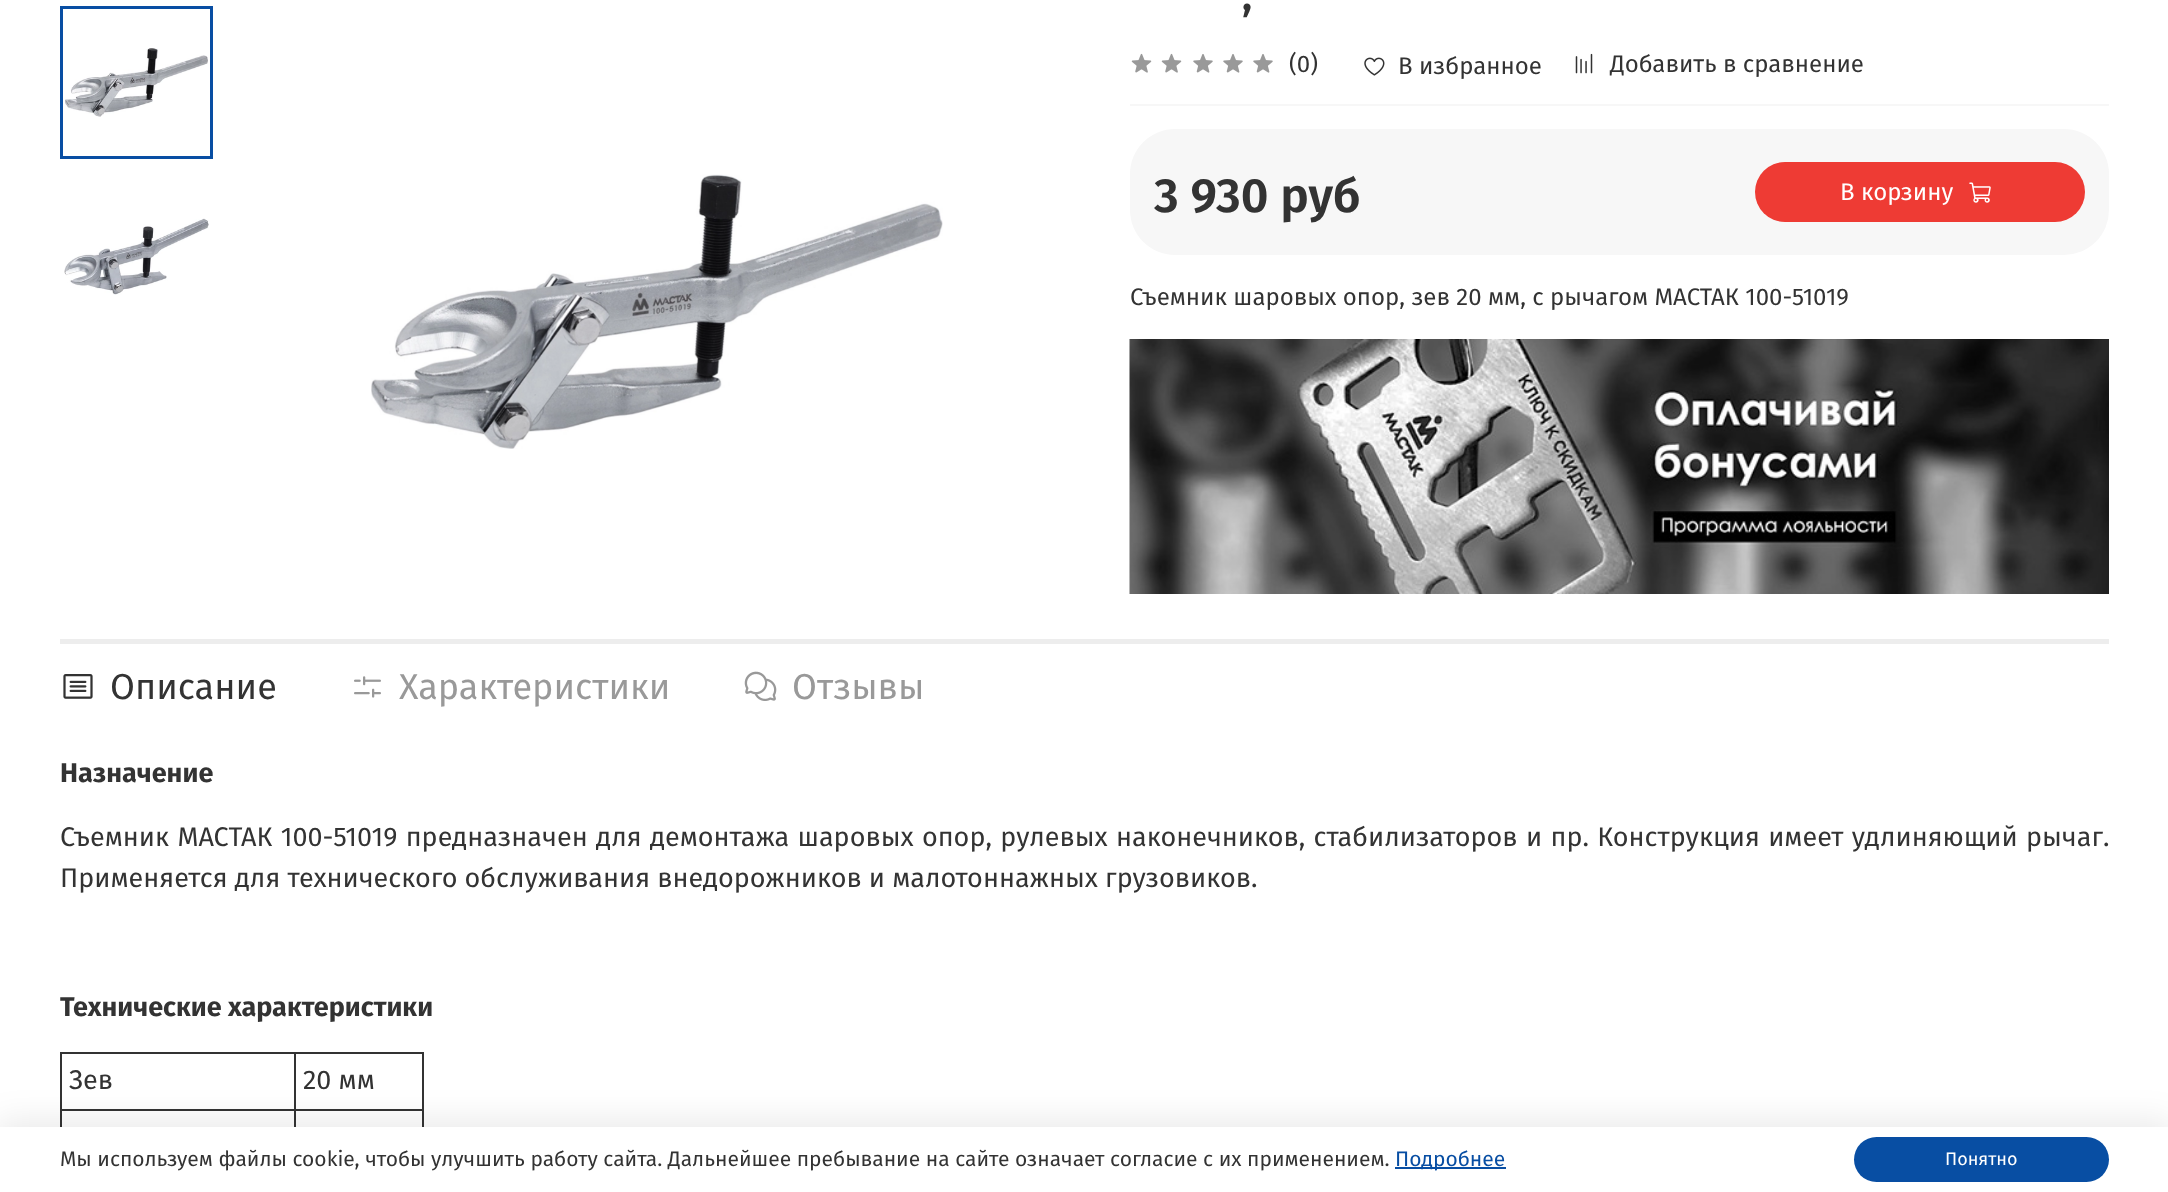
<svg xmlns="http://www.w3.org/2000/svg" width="2168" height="1192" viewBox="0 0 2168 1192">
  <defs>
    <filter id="blur1" x="-50%" y="-200%" width="200%" height="500%"><feGaussianBlur stdDeviation="17"/></filter>
  </defs>
  <rect width="100%" height="100%" fill="#ffffff"/>
  <image x="65" y="48" width="143" height="69" href="img1.png"/>
  <rect x="61.5" y="7.5" width="150" height="150" fill="none" stroke="#084ea3" stroke-width="3"/>
  <image x="64" y="218" width="145" height="77" href="img2.png"/>
  <image x="371" y="174" width="572" height="275" href="img3.png"/>
  <text x="1242" y="10" font-family="Fira Sans" font-size="42" font-weight="600" fill="#333333">,</text>
  <rect x="1130" y="104" width="979" height="2" fill="#f7f7f7"/>
  <image x="1131" y="53" width="21" height="20" href="img4.png"/>
  <image x="1161" y="53" width="21" height="20" href="img4.png"/>
  <image x="1193" y="54" width="20" height="19" href="img5.png"/>
  <image x="1223" y="54" width="20" height="19" href="img5.png"/>
  <image x="1253" y="54" width="20" height="19" href="img5.png"/>
  <text x="1289" y="72" font-family="Fira Sans" font-size="24" fill="#333333">(0)</text>
  <image x="1364" y="57" width="21" height="19" href="img6.png"/>
  <text x="1398" y="74" font-family="Fira Sans" font-size="24" fill="#333333">В избранное</text>
  <image x="1575" y="53" width="18" height="21" href="img7.png"/>
  <text x="1610" y="72" font-family="Fira Sans" font-size="24" fill="#333333">Добавить в сравнение</text>
  <rect x="1130" y="129" width="979" height="126" rx="45" fill="#f7f7f7"/>
  <text x="1154" y="212" font-family="Fira Sans" font-size="48" font-weight="600" fill="#333333">3 930 руб</text>
  <rect x="1755" y="162" width="330" height="60" rx="30" fill="#ee3b34"/>
  <text x="1840" y="200" font-family="Fira Sans" font-size="24" fill="#ffffff">В корзину</text>
  <image x="1969" y="182" width="22" height="21" href="img8.png"/>
  <text x="1130" y="305" font-family="Fira Sans" font-size="24" fill="#333333">Съемник шаровых опор, зев 20 мм, с рычагом МАСТАК 100-51019</text>
  <image x="1129" y="339" width="980" height="255" href="img9.png"/>
  <rect x="60" y="639" width="2049" height="5" fill="#ededed"/>
  <image x="63" y="674" width="30" height="25" href="img10.png"/>
  <text x="110" y="699" font-family="Fira Sans" font-size="36" fill="#333333">Описание</text>
  <image x="354" y="676" width="27" height="22" href="img11.png"/>
  <text x="399" y="699" font-family="Fira Sans" font-size="36" fill="#999999">Характеристики</text>
  <image x="744" y="671" width="33" height="30" href="img12.png"/>
  <text x="792" y="699" font-family="Fira Sans" font-size="36" fill="#999999">Отзывы</text>
  <text x="60" y="782" font-family="Fira Sans" font-size="27" font-weight="bold" fill="#333333">Назначение</text>
  <text x="60" y="846" word-spacing="1.2" font-family="Fira Sans" font-size="27" fill="#333333">Съемник МАСТАК 100-51019 предназначен для демонтажа шаровых опор, рулевых наконечников, стабилизаторов и пр. Конструкция имеет удлиняющий рычаг.</text>
  <text x="60" y="887" font-family="Fira Sans" font-size="27" fill="#333333">Применяется для технического обслуживания внедорожников и малотоннажных грузовиков.</text>
  <text x="60" y="1016" font-family="Fira Sans" font-size="27" font-weight="bold" fill="#333333">Технические характеристики</text>
  <rect x="294" y="1052" width="129" height="2" fill="#333333"/>
  <rect x="294" y="1109" width="129" height="2" fill="#333333"/>
  <rect x="294" y="1109" width="2" height="18" fill="#333333"/>
  <rect x="60" y="1109" width="236" height="2" fill="#333333"/>
  <rect x="294" y="1052" width="2" height="58" fill="#333333"/>
  <rect x="60" y="1052" width="236" height="2" fill="#333333"/>
  <rect x="60" y="1109" width="2" height="18" fill="#333333"/>
  <rect x="60" y="1052" width="2" height="58" fill="#333333"/>
  <text x="69" y="1089" font-family="Fira Sans" font-size="27" fill="#333333">Зев</text>
  <rect x="422" y="1109" width="2" height="18" fill="#333333"/>
  <rect x="422" y="1052" width="2" height="58" fill="#333333"/>
  <text x="303" y="1089" font-family="Fira Sans" font-size="27" fill="#333333">20 мм</text>
  <rect x="-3" y="1122" width="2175" height="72" fill="#000000" fill-opacity="0.09" filter="url(#blur1)"/>
  <rect x="0" y="1127" width="2168" height="65" fill="#ffffff"/>
  <text x="60" y="1166" font-family="Fira Sans" font-size="21" fill="#333333">Мы используем файлы cookie, чтобы улучшить работу сайта. Дальнейшее пребывание на сайте означает согласие с их применением.</text>
  <rect x="1395" y="1167" width="111" height="2" fill="#084ea3"/>
  <text x="1395" y="1166" font-family="Fira Sans" font-size="21" fill="#084ea3">Подробнее</text>
  <rect x="1854" y="1137" width="255" height="45" rx="22.5" fill="#084ea3"/>
  <text x="1945" y="1165" font-family="Fira Sans" font-size="18" fill="#ffffff">Понятно</text>
</svg>
